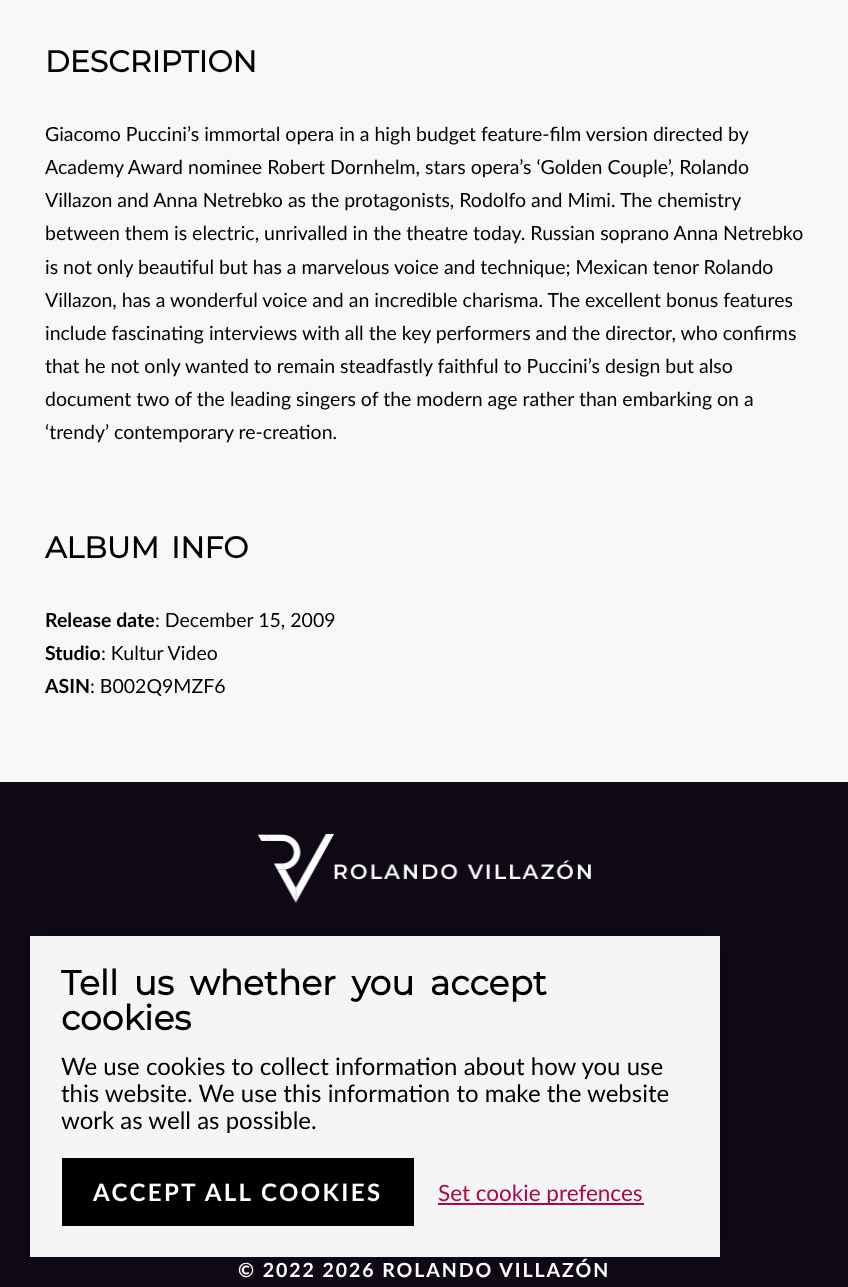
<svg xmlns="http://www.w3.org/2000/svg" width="848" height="1287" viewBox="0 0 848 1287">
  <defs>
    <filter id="blur1" x="-50%" y="-200%" width="200%" height="500%"><feGaussianBlur stdDeviation="7.5"/></filter>
  </defs>
  <rect width="100%" height="100%" fill="#f8f8f8"/>
  <text x="45" y="72" font-family="Montserrat" font-size="30" font-weight="bold" fill="#000000">DESCRIPTION</text>
  <text x="45" y="141" font-family="Lato" font-size="19.5" fill="#000000">Giacomo Puccini’s immortal opera in a high budget feature-film version directed by</text>
  <text x="45" y="174" font-family="Lato" font-size="19.5" fill="#000000">Academy Award nominee Robert Dornhelm, stars opera’s ‘Golden Couple’, Rolando</text>
  <text x="45" y="207" font-family="Lato" font-size="19.5" fill="#000000">Villazon and Anna Netrebko as the protagonists, Rodolfo and Mimi. The chemistry</text>
  <text x="45" y="240" font-family="Lato" font-size="19.5" fill="#000000">between them is electric, unrivalled in the theatre today. Russian soprano Anna Netrebko</text>
  <text x="45" y="274" font-family="Lato" font-size="19.5" fill="#000000">is not only beautiful but has a marvelous voice and technique; Mexican tenor Rolando</text>
  <text x="45" y="307" font-family="Lato" font-size="19.5" fill="#000000">Villazon, has a wonderful voice and an incredible charisma. The excellent bonus features</text>
  <text x="45" y="340" font-family="Lato" font-size="19.5" fill="#000000">include fascinating interviews with all the key performers and the director, who confirms</text>
  <text x="45" y="373" font-family="Lato" font-size="19.5" fill="#000000">that he not only wanted to remain steadfastly faithful to Puccini’s design but also</text>
  <text x="45" y="406" font-family="Lato" font-size="19.5" fill="#000000">document two of the leading singers of the modern age rather than embarking on a</text>
  <text x="45" y="439" font-family="Lato" font-size="19.5" fill="#000000">‘trendy’ contemporary re-creation.</text>
  <text x="45" y="558" word-spacing="4" font-family="Montserrat" font-size="30" font-weight="bold" fill="#000000">ALBUM INFO</text>
  <text x="45" y="627" font-family="Lato" font-size="19.5" font-weight="bold" fill="#000000">Release date</text>
  <text x="155" y="627" font-family="Lato" font-size="19.5" fill="#000000">: December 15, 2009</text>
  <text x="45" y="660" font-family="Lato" font-size="19.5" font-weight="bold" fill="#000000">Studio</text>
  <text x="101" y="660" font-family="Lato" font-size="19.5" fill="#000000">: Kultur Video</text>
  <text x="45" y="693" font-family="Lato" font-size="19.5" font-weight="bold" fill="#000000">ASIN</text>
  <text x="90" y="693" font-family="Lato" font-size="19.5" fill="#000000">: B002Q9MZF6</text>
  <rect x="0" y="782" width="848" height="505" fill="#0e0915"/>
  <rect x="30" y="936" width="690" height="321" fill="#000000" fill-opacity="0.3" filter="url(#blur1)"/>
  <rect x="30" y="936" width="690" height="321" fill="#f5f5f5"/>
  <text x="61" y="995" word-spacing="6.5" font-family="Montserrat" font-size="34.5" font-weight="bold" fill="#000000">Tell us whether you accept</text>
  <text x="61" y="1030" font-family="Montserrat" font-size="34.5" font-weight="bold" fill="#000000">cookies</text>
  <text x="61" y="1075" font-family="Lato" font-size="24" fill="#000000">We use cookies to collect information about how you use</text>
  <text x="61" y="1102" font-family="Lato" font-size="24" fill="#000000">this website. We use this information to make the website</text>
  <text x="61" y="1129" font-family="Lato" font-size="24" fill="#000000">work as well as possible.</text>
  <rect x="62" y="1158" width="352" height="68" fill="#000000"/>
  <text x="93" y="1201" font-family="Lato" font-size="24" font-weight="bold" letter-spacing="2.4" fill="#ffffff">ACCEPT ALL COOKIES</text>
  <rect x="438" y="1203" width="206" height="2" fill="#ac0849"/>
  <text x="438" y="1201" font-family="Lato" font-size="22.5" fill="#ac0849">Set cookie prefences</text>
  <image x="258" y="834" width="333" height="69" href="img1.png"/>
  <text x="238" y="1277" font-family="Lato" font-size="19.5" font-weight="bold" letter-spacing="1.95" fill="#ffffff">© 2022 2026 ROLANDO VILLAZÓN</text>
</svg>
